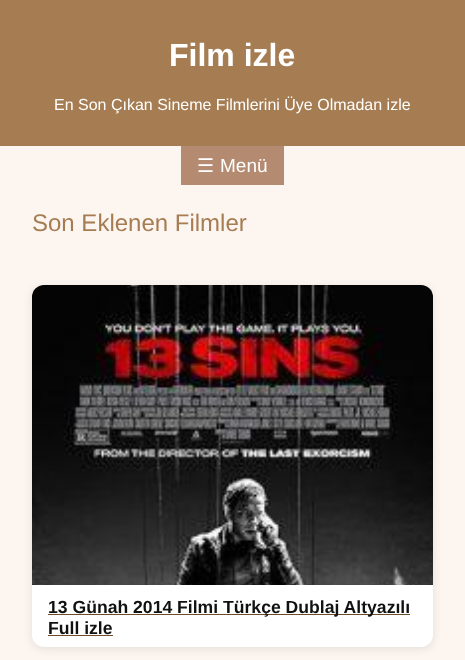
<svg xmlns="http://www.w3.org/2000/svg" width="465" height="660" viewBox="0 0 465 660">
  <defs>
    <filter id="blur1" x="-50%" y="-200%" width="200%" height="500%"><feGaussianBlur stdDeviation="4"/></filter>
  </defs>
  <rect width="100%" height="100%" fill="#fdf6f0"/>
  <rect x="0" y="0" width="465" height="146" fill="#a67c52"/>
  <text x="169" y="66" font-family="Liberation Sans" font-size="32" font-weight="bold" fill="#ffffff">Film izle</text>
  <text x="54" y="110" font-family="Liberation Sans" font-size="16" fill="#ffffff">En Son Çıkan Sineme Filmlerini Üye Olmadan izle</text>
  <rect x="181" y="146" width="103" height="39" fill="#b48a70"/>
  <text x="197" y="172" font-family="DejaVu Sans" font-size="19" fill="#ffffff">☰</text>
  <text x="220" y="172" font-family="Liberation Sans" font-size="19" fill="#ffffff">Menü</text>
  <text x="32" y="231" font-family="Liberation Sans" font-size="24" fill="#a67c52">Son Eklenen Filmler</text>
  <rect x="32" y="287" width="401" height="362" rx="12" fill="#000000" fill-opacity="0.1" filter="url(#blur1)"/>
  <rect x="32" y="285" width="401" height="362" rx="12" fill="#ffffff"/>
  <image x="32" y="285" width="401" height="300" href="img1.png"/>
  <rect x="48" y="614" width="362" height="1" fill="#6b4c2b"/>
  <text x="48" y="613" font-family="Liberation Sans" font-size="17.6" font-weight="bold" fill="#111111">13 Günah 2014 Filmi Türkçe Dublaj Altyazılı</text>
  <text x="48" y="634" font-family="Liberation Sans" font-size="17.6" font-weight="bold" fill="#111111">Full izle</text>
  <rect x="48" y="635" width="65" height="1" fill="#6b4c2b"/>
</svg>
